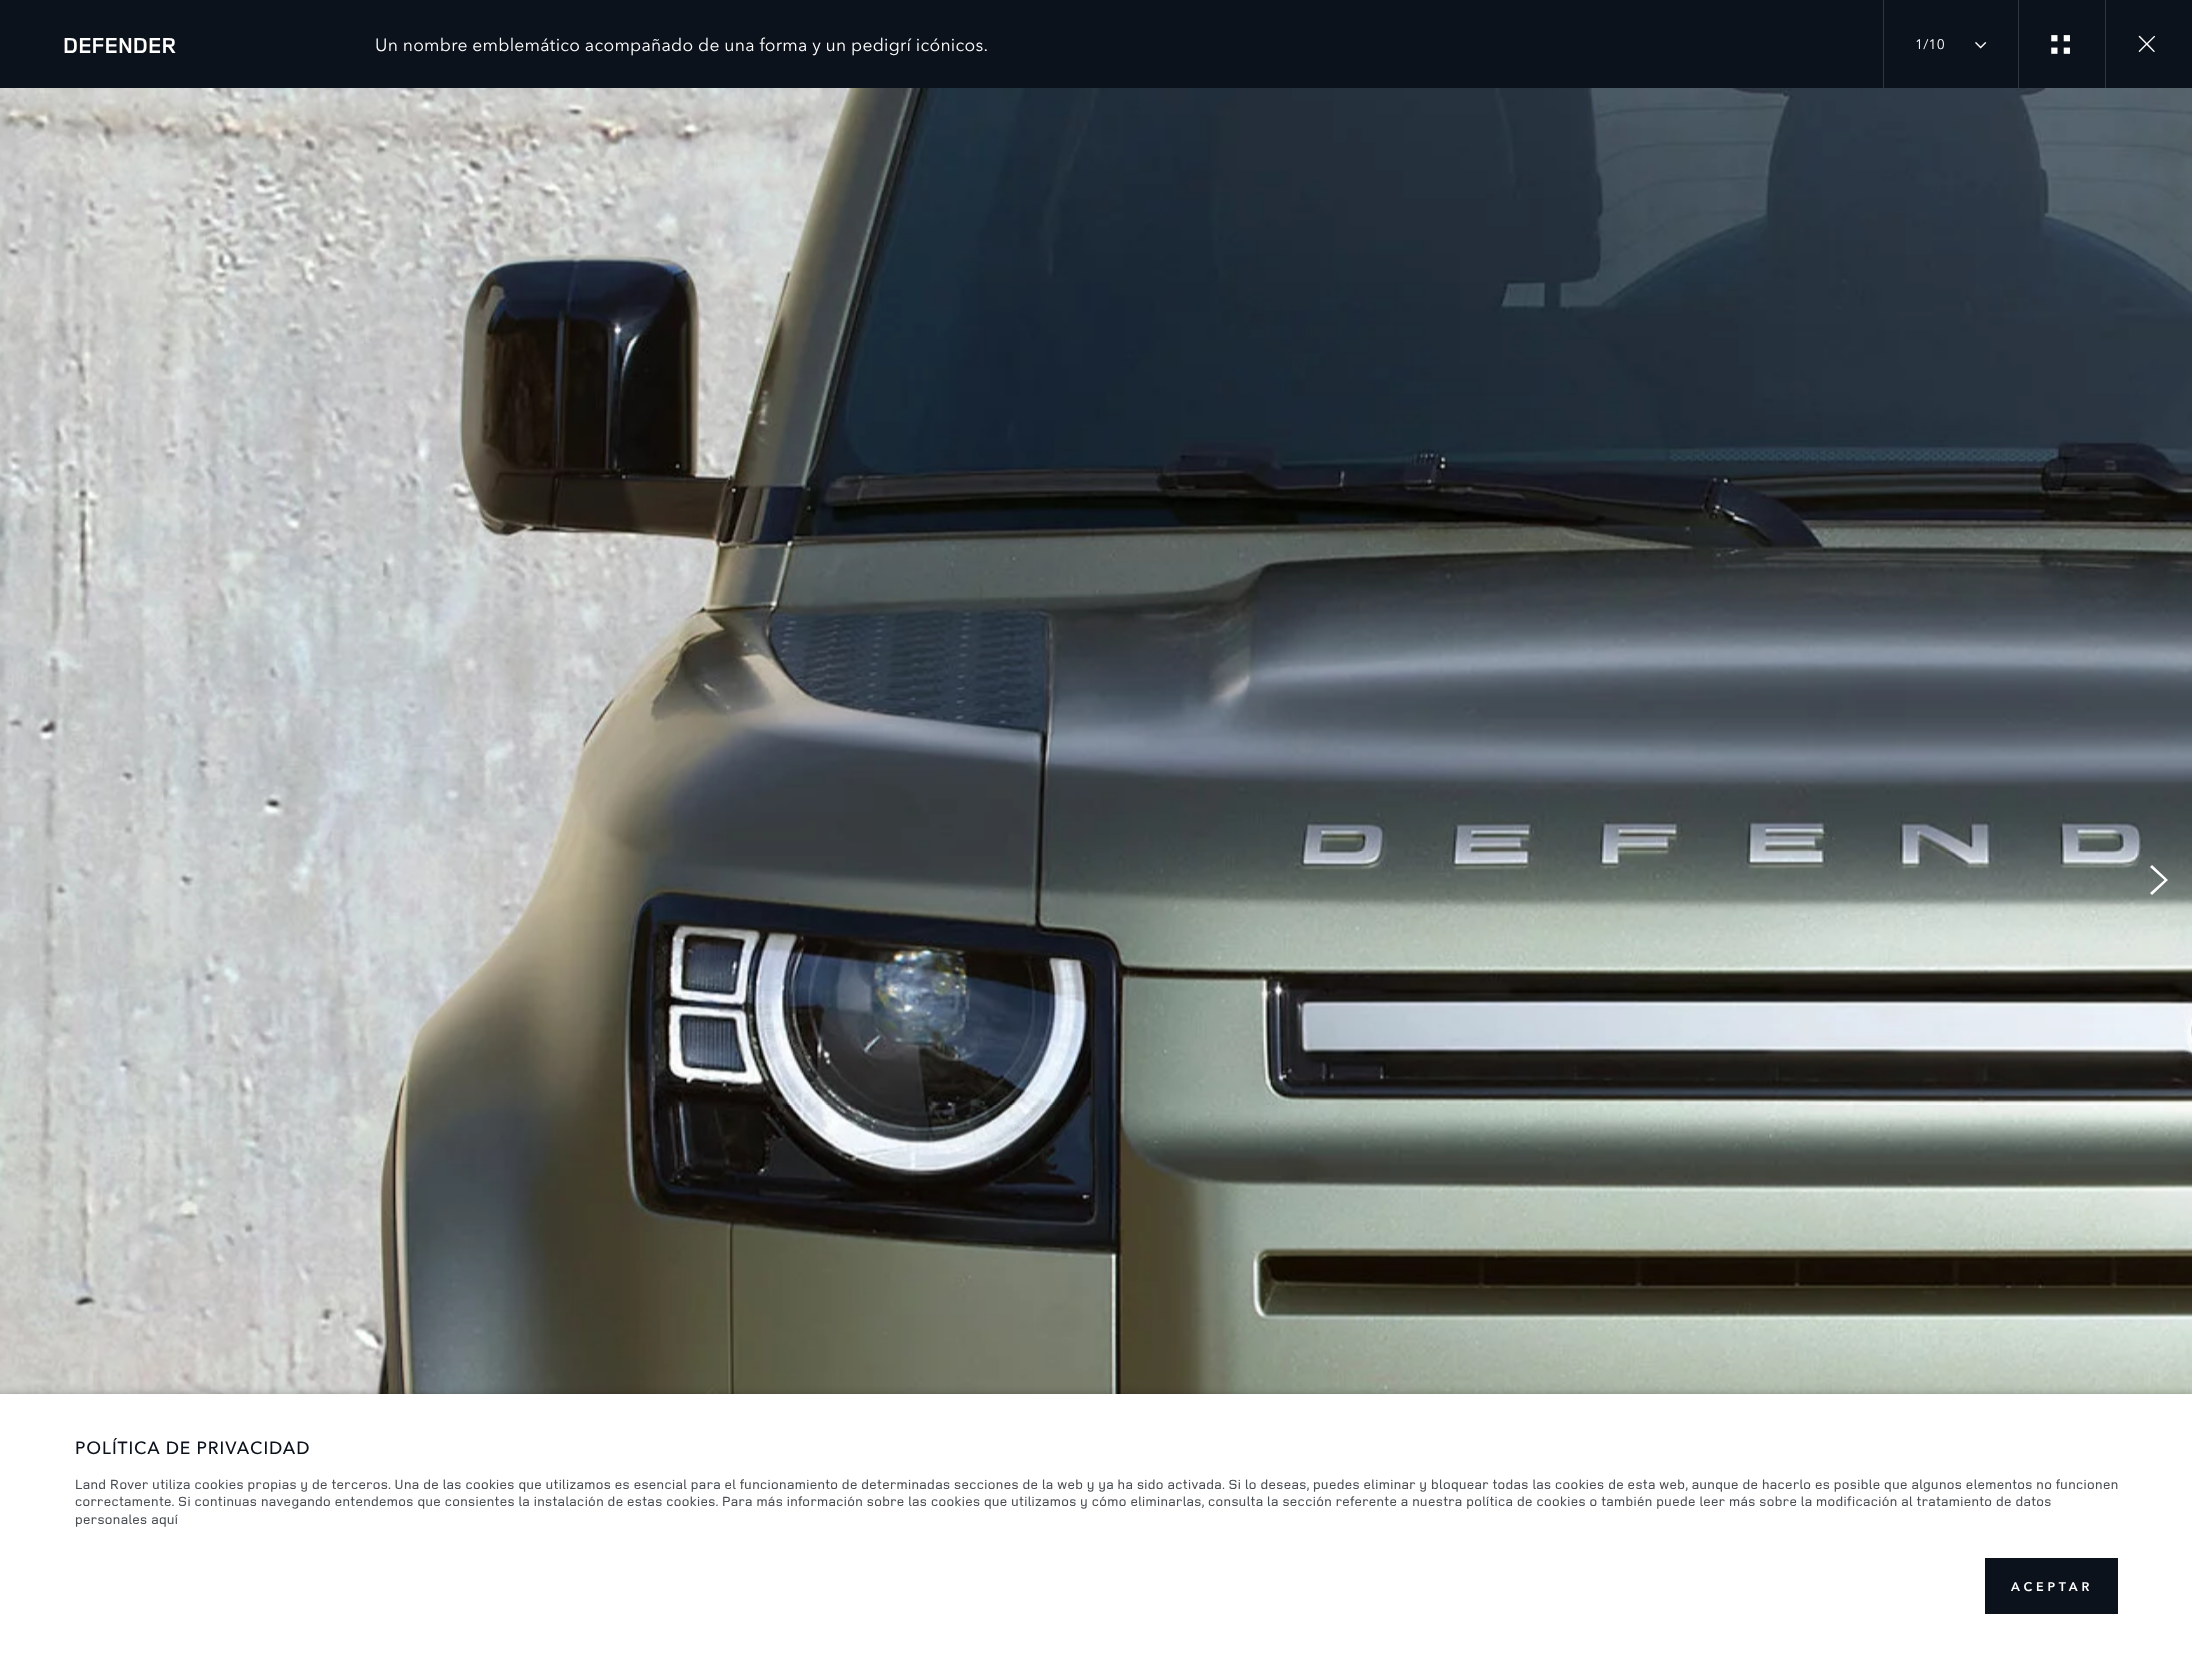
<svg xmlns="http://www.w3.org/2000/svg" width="2192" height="1657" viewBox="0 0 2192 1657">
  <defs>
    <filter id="blur1" x="-50%" y="-200%" width="200%" height="500%"><feGaussianBlur stdDeviation="4"/></filter>
  </defs>
  <rect width="100%" height="100%" fill="#ffffff"/>
  <rect x="0" y="0" width="2192" height="88" fill="#0c121c"/>
  <text x="63" y="53" font-family="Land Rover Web" font-size="22.5" font-weight="bold" fill="#ffffff">DEFENDER</text>
  <text x="375" y="51" font-family="Avenir Next" font-size="17.5" letter-spacing="0.25" fill="#ffffff">Un nombre emblemático acompañado de una forma y un pedigrí icónicos.</text>
  <rect x="1883" y="0" width="1" height="88" fill="#30363e"/>
  <text x="1915" y="49" font-family="Avenir Next" font-size="13.75" letter-spacing="0.25" fill="#ffffff">1/10</text>
  <image x="1975" y="42" width="12" height="7" href="img1.png"/>
  <rect x="2018" y="0" width="1" height="88" fill="#30363e"/>
  <image x="2051" y="35" width="19" height="19" href="img2.png"/>
  <rect x="2105" y="0" width="1" height="88" fill="#30363e"/>
  <image x="2138" y="35" width="17" height="17" href="img3.png"/>
  <image x="0" y="88" width="2192" height="1306" href="img4.png"/>
  <path d="M2152 895L2150 893L2164.5 880L2150 867L2152 865L2168 880Z" fill="#ffffff"/>
  <rect x="0" y="1394" width="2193" height="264" fill="#010101" fill-opacity="0.25" filter="url(#blur1)"/>
  <rect x="0" y="1394" width="2192" height="263" fill="#ffffff"/>
  <text x="75" y="1454" font-family="Avenir Next" font-size="17.5" font-weight="500" letter-spacing="0.9" fill="#0c121c">POLÍTICA DE PRIVACIDAD</text>
  <text x="75" y="1489" font-family="Land Rover Web" font-size="13.75" font-weight="500" letter-spacing="0.38" fill="#4a4f54">Land Rover utiliza cookies propias y de terceros. Una de las cookies que utilizamos es esencial para el funcionamiento de determinadas secciones de la web y ya ha sido activada. Si lo deseas, puedes eliminar y bloquear todas las cookies de esta web, aunque de hacerlo es posible que algunos elementos no funcionen</text>
  <text x="75" y="1506" font-family="Land Rover Web" font-size="13.75" font-weight="500" letter-spacing="0.38" fill="#4a4f54">correctamente. Si continuas navegando entendemos que consientes la instalación de estas cookies. Para más información sobre las cookies que utilizamos y cómo eliminarlas, consulta la sección referente a nuestra política de cookies o también puede leer más sobre la modificación al tratamiento de datos</text>
  <text x="75" y="1524" font-family="Land Rover Web" font-size="13.75" font-weight="500" letter-spacing="0.38" fill="#4a4f54">personales aquí</text>
  <rect x="1985" y="1558" width="133" height="56" fill="#0c121c"/>
  <text x="2011" y="1591" font-family="Avenir Next" font-size="12.5" font-weight="600" letter-spacing="3.75" fill="#ffffff">ACEPTAR</text>
</svg>
